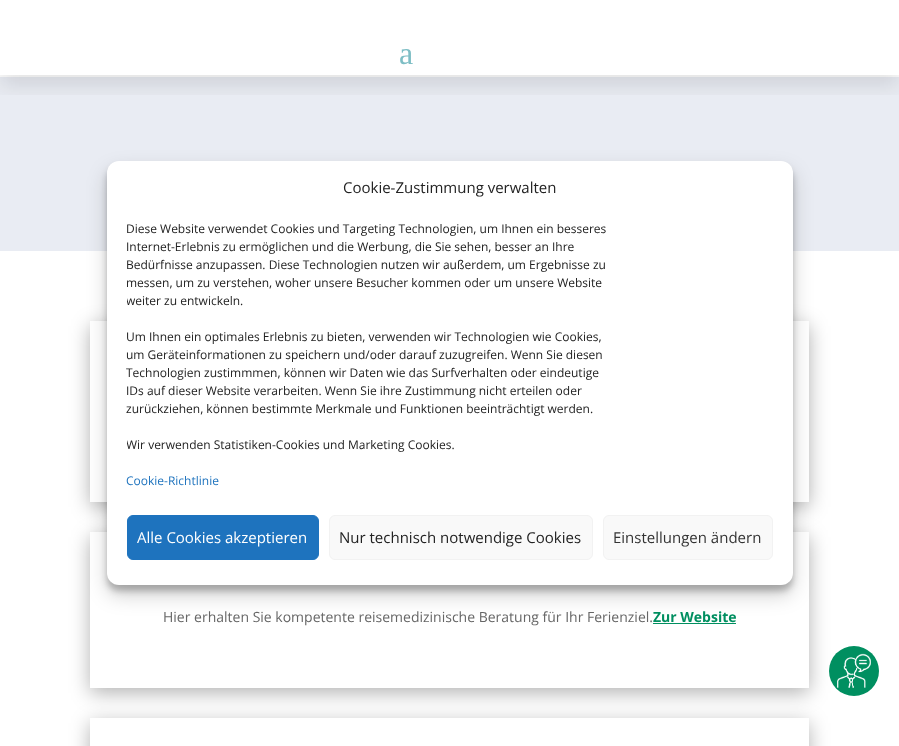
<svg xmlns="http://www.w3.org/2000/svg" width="899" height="746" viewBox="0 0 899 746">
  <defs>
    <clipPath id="clip1"><rect x="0" y="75" width="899" height="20"/></clipPath>
    <filter id="blur1" x="-50%" y="-200%" width="200%" height="500%"><feGaussianBlur stdDeviation="10"/></filter>
    <clipPath id="clip2"><path d="M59 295H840V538H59ZM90 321H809V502H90Z" clip-rule="evenodd"/></clipPath>
    <clipPath id="clip3"><path d="M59 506H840V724H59ZM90 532H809V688H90Z" clip-rule="evenodd"/></clipPath>
    <clipPath id="clip4"><path d="M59 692H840V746H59ZM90 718H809V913H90Z" clip-rule="evenodd"/></clipPath>
    <filter id="blur2" x="-50%" y="-200%" width="200%" height="500%"><feGaussianBlur stdDeviation="3"/></filter>
    <clipPath id="clip5"><rect x="127" y="220" width="646" height="275"/></clipPath>
  </defs>
  <rect width="100%" height="100%" fill="#ffffff"/>
  <rect x="0" y="77" width="899" height="174" fill="#e9ecf3"/>
  <g clip-path="url(#clip1)">
    <rect x="0" y="12" width="899" height="75" fill="#000000" fill-opacity="0.1" filter="url(#blur1)"/>
  </g>
  <text x="399" y="64" font-family="Liberation Serif" font-size="32" fill="#7ebec5">a</text>
  <g clip-path="url(#clip2)">
    <rect x="90" y="326" width="719" height="181" fill="#000000" fill-opacity="0.3" filter="url(#blur1)"/>
  </g>
  <g clip-path="url(#clip3)">
    <rect x="90" y="537" width="719" height="156" fill="#000000" fill-opacity="0.3" filter="url(#blur1)"/>
  </g>
  <text x="163" y="622" font-family="Open Sans" font-size="14" fill="#666666">Hier erhalten Sie kompetente reisemedizinische Beratung für Ihr Ferienziel.</text>
  <text x="653" y="622" font-family="Open Sans" font-size="14" font-weight="bold" fill="#008f60">Zur Website</text>
  <rect x="653" y="623" width="83" height="1" fill="#008f60"/>
  <g clip-path="url(#clip4)">
    <rect x="90" y="723" width="719" height="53" fill="#000000" fill-opacity="0.3" filter="url(#blur1)"/>
  </g>
  <circle cx="854" cy="671" r="25" fill="#008f60"/>
  <image x="837" y="653" width="34" height="35" href="img1.png"/>
  <rect x="107" y="167" width="686" height="424" rx="12" fill="#000000" fill-opacity="0.23" filter="url(#blur2)"/>
  <rect x="107" y="171" width="686" height="424" rx="12" fill="#000000" fill-opacity="0.19" filter="url(#blur1)"/>
  <rect x="107" y="161" width="686" height="424" rx="12" fill="#ffffff"/>
  <text x="343" y="193" font-family="Open Sans" font-size="15" fill="#222222">Cookie-Zustimmung verwalten</text>
  <text x="126" y="233" font-family="Open Sans" font-size="12" fill="#222222">Diese Website verwendet Cookies und Targeting Technologien, um Ihnen ein besseres</text>
  <text x="126" y="251" font-family="Open Sans" font-size="12" fill="#222222">Internet-Erlebnis zu ermöglichen und die Werbung, die Sie sehen, besser an Ihre</text>
  <text x="126" y="269" font-family="Open Sans" font-size="12" fill="#222222">Bedürfnisse anzupassen. Diese Technologien nutzen wir außerdem, um Ergebnisse zu</text>
  <text x="126" y="287" font-family="Open Sans" font-size="12" fill="#222222">messen, um zu verstehen, woher unsere Besucher kommen oder um unsere Website</text>
  <g clip-path="url(#clip5)">
    <text x="126" y="305" font-family="Open Sans" font-size="12" fill="#222222">weiter zu entwickeln.</text>
  </g>
  <text x="126" y="341" font-family="Open Sans" font-size="12" fill="#222222">Um Ihnen ein optimales Erlebnis zu bieten, verwenden wir Technologien wie Cookies,</text>
  <text x="126" y="359" font-family="Open Sans" font-size="12" fill="#222222">um Geräteinformationen zu speichern und/oder darauf zuzugreifen. Wenn Sie diesen</text>
  <text x="126" y="377" font-family="Open Sans" font-size="12" fill="#222222">Technologien zustimmmen, können wir Daten wie das Surfverhalten oder eindeutige</text>
  <text x="126" y="395" font-family="Open Sans" font-size="12" fill="#222222">IDs auf dieser Website verarbeiten. Wenn Sie ihre Zustimmung nicht erteilen oder</text>
  <text x="126" y="413" font-family="Open Sans" font-size="12" fill="#222222">zurückziehen, können bestimmte Merkmale und Funktionen beeinträchtigt werden.</text>
  <g clip-path="url(#clip5)">
    <text x="126" y="449" font-family="Open Sans" font-size="12" fill="#222222">Wir verwenden Statistiken-Cookies und Marketing Cookies.</text>
  </g>
  <text x="126" y="485" font-family="Open Sans" font-size="12" fill="#1e73be">Cookie-Richtlinie</text>
  <rect x="127.5" y="515.5" width="191" height="44" rx="5.5" fill="#1e73be" stroke="#1e73be"/>
  <text x="137" y="543" font-family="Open Sans" font-size="15" fill="#ffffff">Alle Cookies akzeptieren</text>
  <rect x="329.5" y="515.5" width="263" height="44" rx="5.5" fill="#f9f9f9" stroke="#f2f2f2"/>
  <text x="339" y="543" font-family="Open Sans" font-size="15" fill="#222222">Nur technisch notwendige Cookies</text>
  <rect x="603.5" y="515.5" width="169" height="44" rx="5.5" fill="#f9f9f9" stroke="#f2f2f2"/>
  <text x="613" y="543" font-family="Open Sans" font-size="15" fill="#333333">Einstellungen ändern</text>
</svg>
